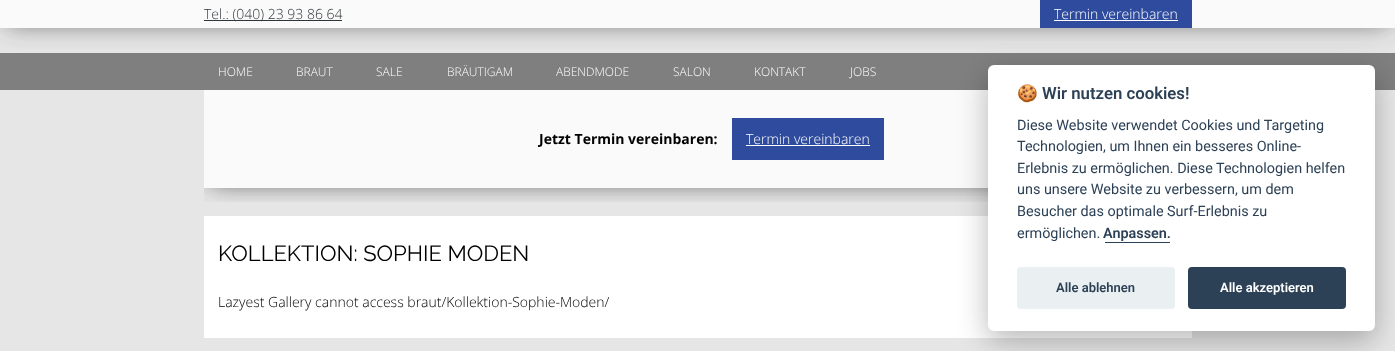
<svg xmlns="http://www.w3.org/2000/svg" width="1395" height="351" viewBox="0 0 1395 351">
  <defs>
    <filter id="blur1" x="-50%" y="-200%" width="200%" height="500%"><feGaussianBlur stdDeviation="13"/></filter>
    <clipPath id="clip1"><rect x="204" y="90" width="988" height="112"/></clipPath>
    <filter id="blur2" x="-50%" y="-200%" width="200%" height="500%"><feGaussianBlur stdDeviation="15"/></filter>
  </defs>
  <rect width="100%" height="100%" fill="#e6e6e6"/>
  <rect x="0" y="53" width="1395" height="37" fill="#7f7f7f"/>
  <rect x="6" y="6" width="1383" height="16" fill="#444444" filter="url(#blur1)"/>
  <rect x="0" y="0" width="1395" height="28" fill="#fafafa"/>
  <rect x="204" y="20" width="138" height="1" fill="#2f363a"/>
  <text x="204" y="19" font-family="Open Sans" font-size="14" font-weight="300" fill="#2f363a">Tel.: (040) 23 93 86 64</text>
  <rect x="1040" y="0" width="152" height="28" fill="#2f4b9d"/>
  <text x="1054" y="19" font-family="Open Sans" font-size="14" font-weight="300" fill="#ffffff">Termin vereinbaren</text>
  <rect x="1054" y="20" width="124" height="1" fill="#ffffff"/>
  <text x="218" y="76" font-family="Open Sans" font-size="12" font-weight="300" fill="#ffffff">HOME</text>
  <text x="296" y="76" font-family="Open Sans" font-size="12" font-weight="300" fill="#ffffff">BRAUT</text>
  <text x="376" y="76" font-family="Open Sans" font-size="12" font-weight="300" fill="#ffffff">SALE</text>
  <text x="447" y="76" font-family="Open Sans" font-size="12" font-weight="300" fill="#ffffff">BRÄUTIGAM</text>
  <text x="556" y="76" font-family="Open Sans" font-size="12" font-weight="300" fill="#ffffff">ABENDMODE</text>
  <text x="673" y="76" font-family="Open Sans" font-size="12" font-weight="300" fill="#ffffff">SALON</text>
  <text x="754" y="76" font-family="Open Sans" font-size="12" font-weight="300" fill="#ffffff">KONTAKT</text>
  <text x="850" y="76" font-family="Open Sans" font-size="12" font-weight="300" fill="#ffffff">JOBS</text>
  <rect x="204" y="216" width="988" height="122" fill="#ffffff"/>
  <g clip-path="url(#clip1)">
    <rect x="210" y="96" width="976" height="86" fill="#444444" filter="url(#blur1)"/>
  </g>
  <rect x="204" y="90" width="784" height="98" fill="#fafafa"/>
  <text x="539" y="144" font-family="Open Sans" font-size="14" font-weight="bold" fill="#000000">Jetzt Termin vereinbaren:</text>
  <rect x="732" y="118" width="152" height="42" fill="#2f4b9d"/>
  <text x="746" y="144" font-family="Open Sans" font-size="14" font-weight="300" fill="#ffffff">Termin vereinbaren</text>
  <rect x="746" y="145" width="124" height="1" fill="#ffffff"/>
  <text x="218" y="261" font-family="Raleway" font-size="22" fill="#000000">KOLLEKTION: SOPHIE MODEN</text>
  <text x="218" y="307" font-family="Open Sans" font-size="14" font-weight="300" fill="#000000">Lazyest Gallery cannot access braut/Kollektion-Sophie-Moden/</text>
  <rect x="988" y="75" width="387" height="266" rx="6" fill="#020203" fill-opacity="0.28" filter="url(#blur2)"/>
  <rect x="988" y="65" width="387" height="266" rx="6" fill="#ffffff"/>
  <text x="1017" y="99" font-family="Noto Color Emoji" font-size="16.75" font-weight="bold" fill="#2d4156">🍪</text>
  <text x="1042" y="99" font-family="Roboto" font-size="16.75" font-weight="600" fill="#2d4156">Wir nutzen cookies!</text>
  <text x="1017" y="130" font-family="Roboto" font-size="14.4" fill="#2d4156">Diese Website verwendet Cookies und Targeting</text>
  <text x="1017" y="151" font-family="Roboto" font-size="14.4" fill="#2d4156">Technologien, um Ihnen ein besseres Online-</text>
  <text x="1017" y="173" font-family="Roboto" font-size="14.4" fill="#2d4156">Erlebnis zu ermöglichen. Diese Technologien helfen</text>
  <text x="1017" y="194" font-family="Roboto" font-size="14.4" fill="#2d4156">uns unsere Website zu verbessern, um dem</text>
  <text x="1017" y="216" font-family="Roboto" font-size="14.4" fill="#2d4156">Besucher das optimale Surf-Erlebnis zu</text>
  <text x="1017" y="238" font-family="Roboto" font-size="14.4" fill="#2d4156">ermöglichen.</text>
  <text x="1103" y="238" font-family="Roboto" font-size="14.4" font-weight="600" fill="#2d4156">Anpassen.</text>
  <rect x="1105" y="242" width="65" height="1" fill="#2d4156"/>
  <rect x="1017" y="267" width="158" height="42" rx="4" fill="#eaeff2"/>
  <text x="1056" y="292" font-family="Roboto" font-size="13" font-weight="600" fill="#2d4156">Alle ablehnen</text>
  <rect x="1188" y="267" width="158" height="42" rx="4" fill="#2d4156"/>
  <text x="1220" y="292" font-family="Roboto" font-size="13" font-weight="600" fill="#ffffff">Alle akzeptieren</text>
</svg>
